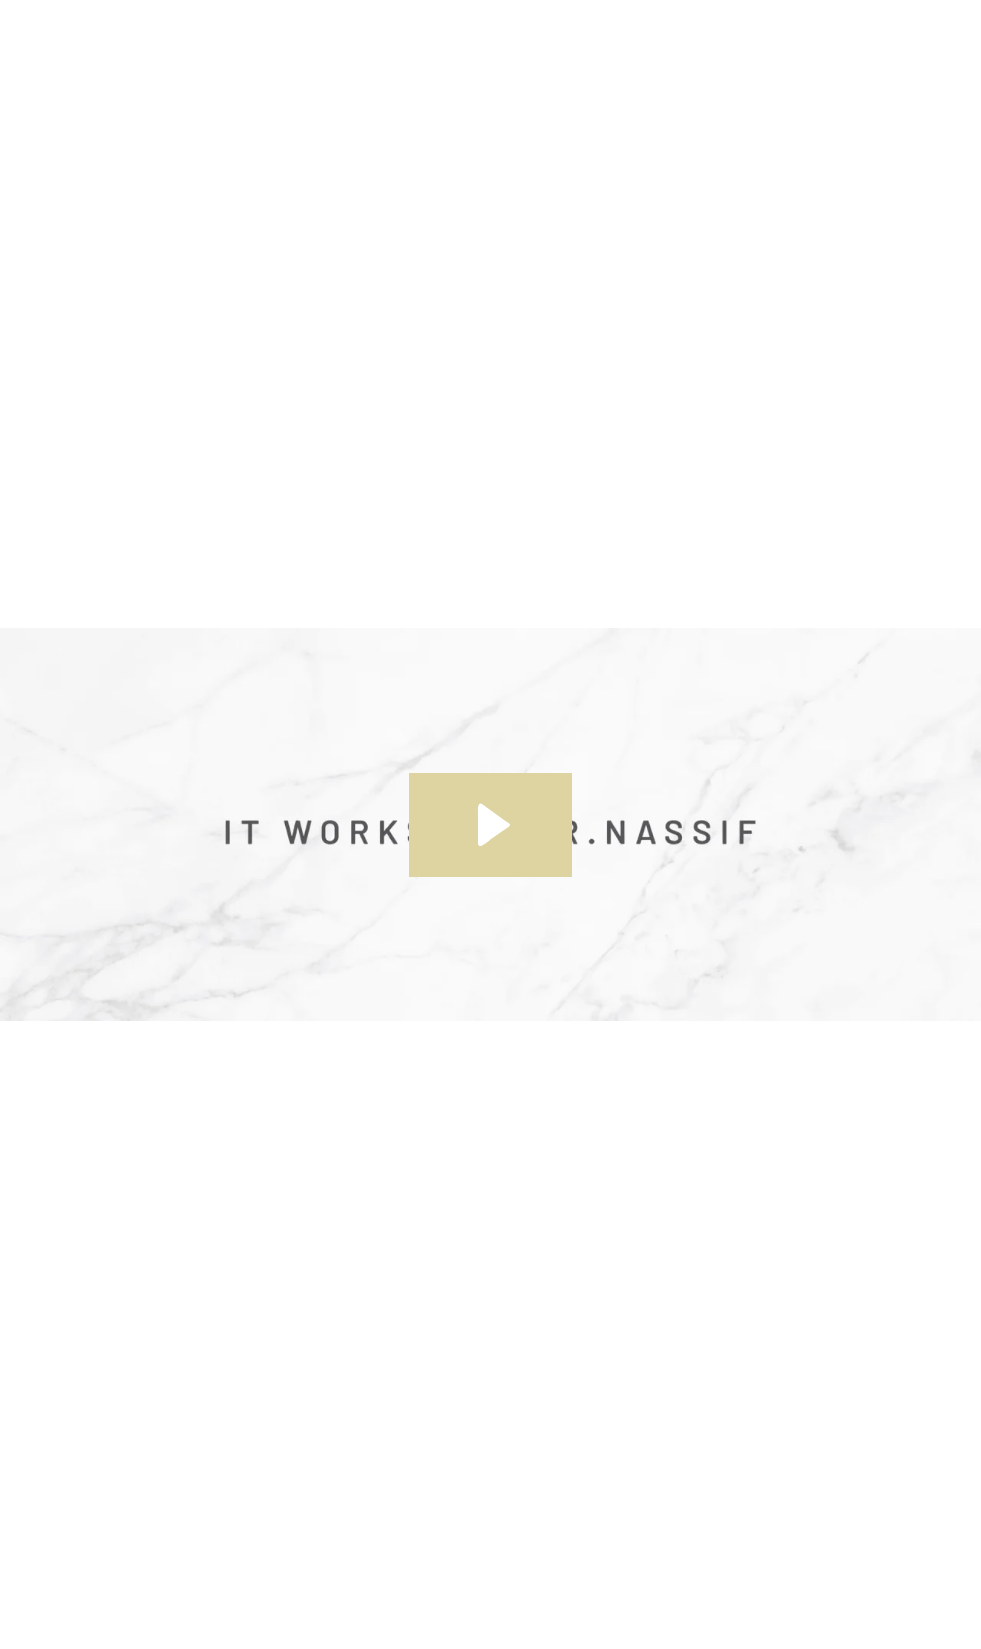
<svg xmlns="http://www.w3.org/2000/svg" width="981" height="1649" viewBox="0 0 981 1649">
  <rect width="100%" height="100%" fill="#ffffff"/>
  <image x="0" y="628" width="981" height="393" href="img1.png"/>
  <rect x="409" y="773" width="163" height="104" fill="#ded4a2"/>
  <path d="M482 804C477 801 478 812 478 813V844L479 846C482 847 489 841 491 839L504 830C512 825 512 825 504 820Z" fill="#ffffff" fill-rule="evenodd"/>
</svg>
